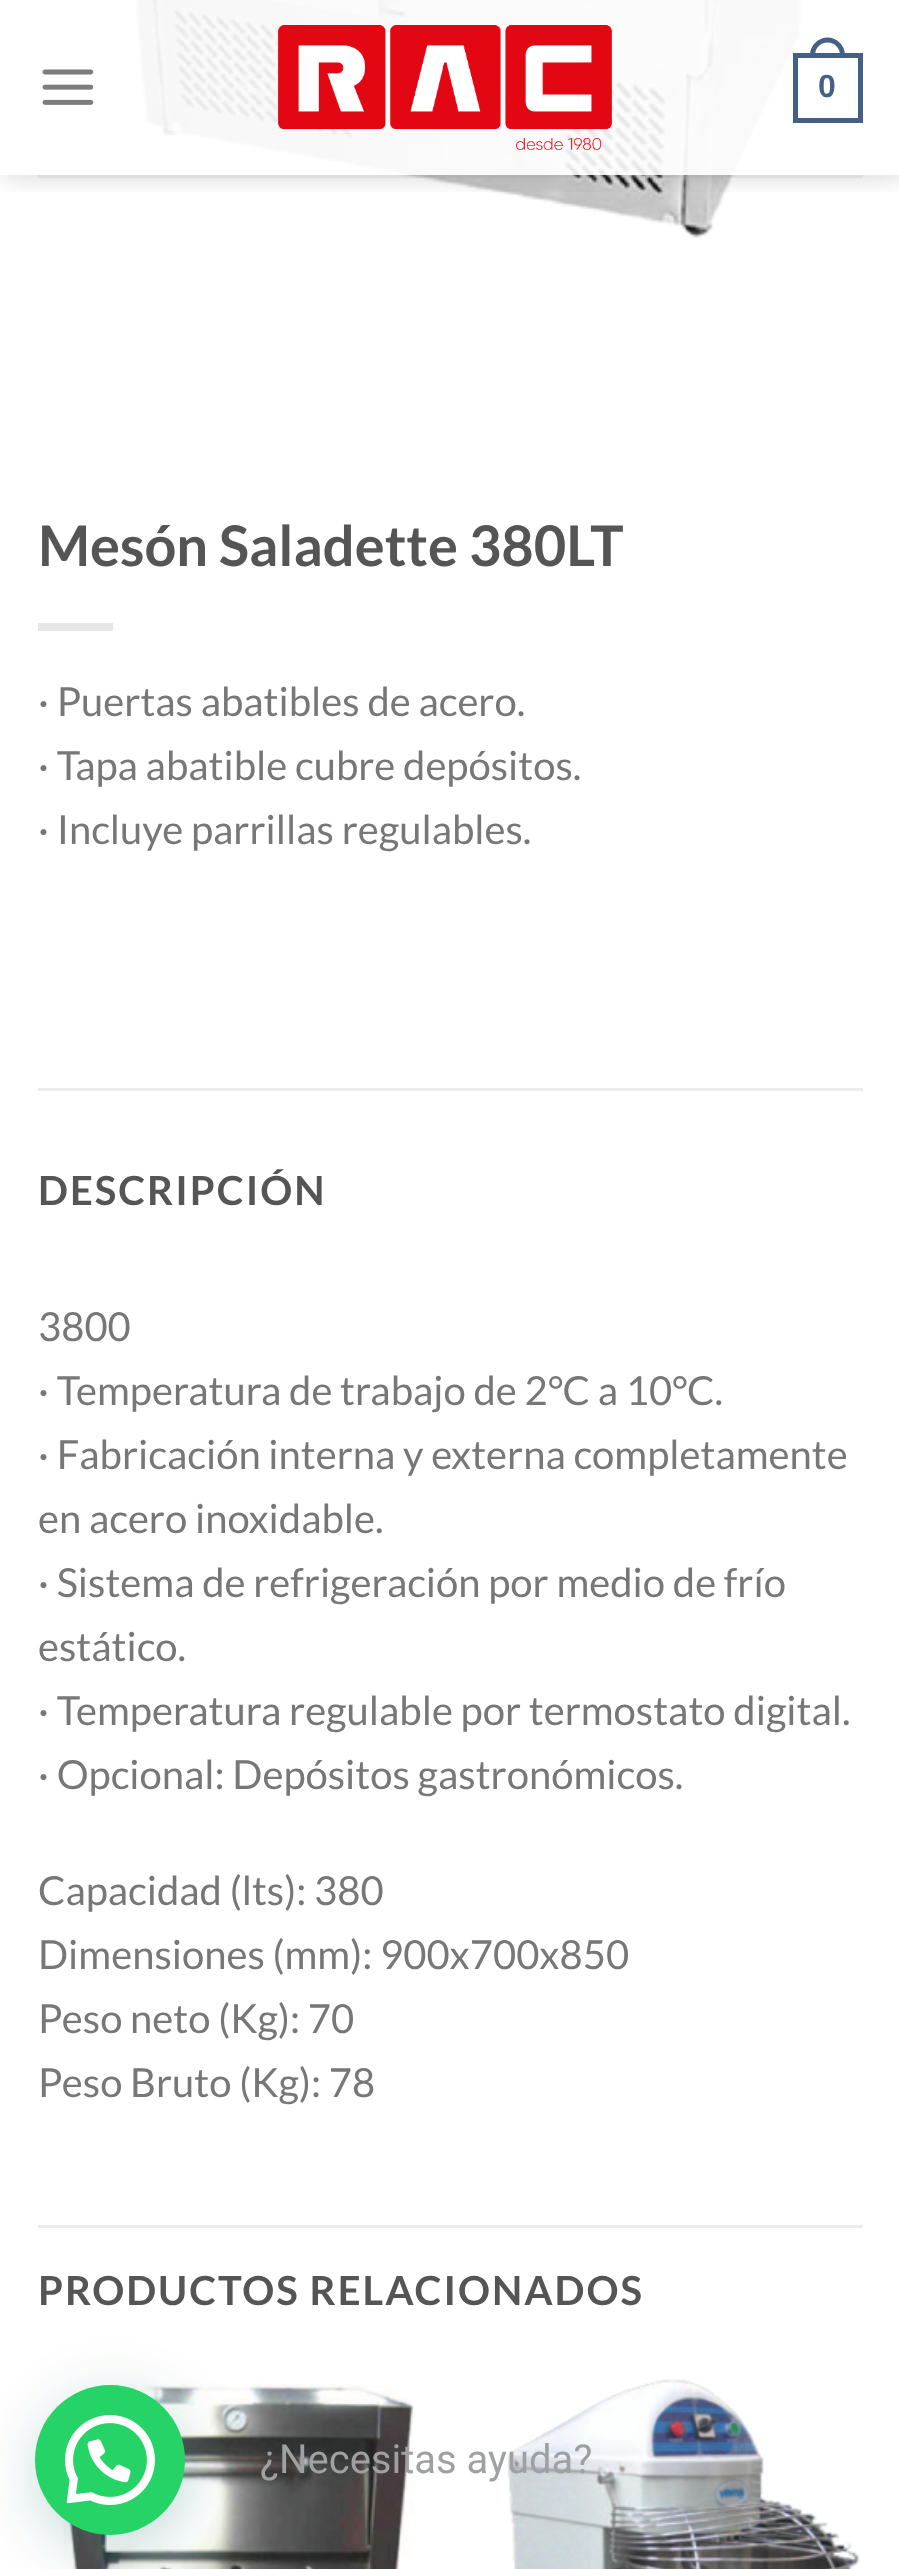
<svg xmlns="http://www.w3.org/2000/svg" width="899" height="2569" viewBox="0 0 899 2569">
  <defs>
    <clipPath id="clip1"><rect x="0" y="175" width="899" height="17"/></clipPath>
    <filter id="blur1" x="-50%" y="-200%" width="200%" height="500%"><feGaussianBlur stdDeviation="12.5"/></filter>
    <filter id="blur2" x="-50%" y="-200%" width="200%" height="500%"><feGaussianBlur stdDeviation="30"/></filter>
  </defs>
  <rect width="100%" height="100%" fill="#ffffff"/>
  <image x="135" y="0" width="667" height="238" href="img3.png"/>
  <g clip-path="url(#clip1)">
    <rect x="3" y="3" width="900" height="175" fill="#000000" fill-opacity="0.15" filter="url(#blur1)"/>
  </g>
  <rect x="135" y="0" width="667" height="175" fill="#ffffff" fill-opacity="0.9"/>
  <image x="42" y="69" width="52" height="36" href="img1.png"/>
  <image x="278" y="25" width="334" height="126" href="img2.png"/>
  <rect x="795.5" y="55.5" width="65" height="65" fill="none" stroke="#446084" stroke-width="5"/>
  <path d="M827.5 37.5C837 37.5 845 45.5 845 55V57.5H810V55C810 45.5 818 37.5 827.5 37.5ZM827.5 42.5C834.5 42.5 840 48 840 55V57.5H815V55C815 48 820.5 42.5 827.5 42.5Z" fill="#446084" fill-rule="evenodd"/>
  <text x="818" y="97" font-family="Liberation Sans" font-size="32" font-weight="bold" fill="#446084">0</text>
  <rect x="38" y="175" width="825" height="3" fill="#777777" fill-opacity="0.1"/>
  <text x="38" y="566" font-family="Lato" font-size="56" font-weight="bold" fill="#555555">Mesón Saladette 380LT</text>
  <rect x="38" y="623" width="75" height="8" fill="#e6e6e6"/>
  <text x="38" y="716" font-family="Lato" font-size="40" fill="#777777">· Puertas abatibles de acero.</text>
  <text x="38" y="780" font-family="Lato" font-size="40" fill="#777777">· Tapa abatible cubre depósitos.</text>
  <text x="38" y="844" font-family="Lato" font-size="40" fill="#777777">· Incluye parrillas regulables.</text>
  <rect x="38" y="1088" width="825" height="3" fill="#ececec"/>
  <text x="38" y="1205" font-family="Lato" font-size="40" font-weight="bold" letter-spacing="2" fill="#555555">DESCRIPCIÓN</text>
  <text x="38" y="1341" font-family="Lato" font-size="40" fill="#777777">3800</text>
  <text x="38" y="1405" font-family="Lato" font-size="40" fill="#777777">· Temperatura de trabajo de 2°C a 10°C.</text>
  <text x="38" y="1469" font-family="Lato" font-size="40" fill="#777777">· Fabricación interna y externa completamente</text>
  <text x="38" y="1533" font-family="Lato" font-size="40" fill="#777777">en acero inoxidable.</text>
  <text x="38" y="1597" font-family="Lato" font-size="40" fill="#777777">· Sistema de refrigeración por medio de frío</text>
  <text x="38" y="1661" font-family="Lato" font-size="40" fill="#777777">estático.</text>
  <text x="38" y="1725" font-family="Lato" font-size="40" fill="#777777">· Temperatura regulable por termostato digital.</text>
  <text x="38" y="1789" font-family="Lato" font-size="40" fill="#777777">· Opcional: Depósitos gastronómicos.</text>
  <text x="38" y="1905" font-family="Lato" font-size="40" fill="#777777">Capacidad (lts): 380</text>
  <text x="38" y="1969" font-family="Lato" font-size="40" fill="#777777">Dimensiones (mm): 900x700x850</text>
  <text x="38" y="2033" font-family="Lato" font-size="40" fill="#777777">Peso neto (Kg): 70</text>
  <text x="38" y="2097" font-family="Lato" font-size="40" fill="#777777">Peso Bruto (Kg): 78</text>
  <rect x="38" y="2225" width="825" height="3" fill="#ececec"/>
  <text x="38" y="2305" font-family="Lato" font-size="40" font-weight="bold" letter-spacing="2" fill="#555555">PRODUCTOS RELACIONADOS</text>
  <image x="51" y="2383" width="364" height="186" href="img4.png"/>
  <image x="507" y="2379" width="353" height="190" href="img5.png"/>
  <rect x="38" y="2400" width="150" height="150" rx="75" fill="#075e54" fill-opacity="0.24" filter="url(#blur2)"/>
  <circle cx="110" cy="2460" r="75" fill="#25d366"/>
  <image x="65" y="2415" width="90" height="90" href="img6.png"/>
  <text x="260" y="2473" font-family="Roboto" font-size="40" fill="#9fa0a1">¿Necesitas ayuda?</text>
</svg>
